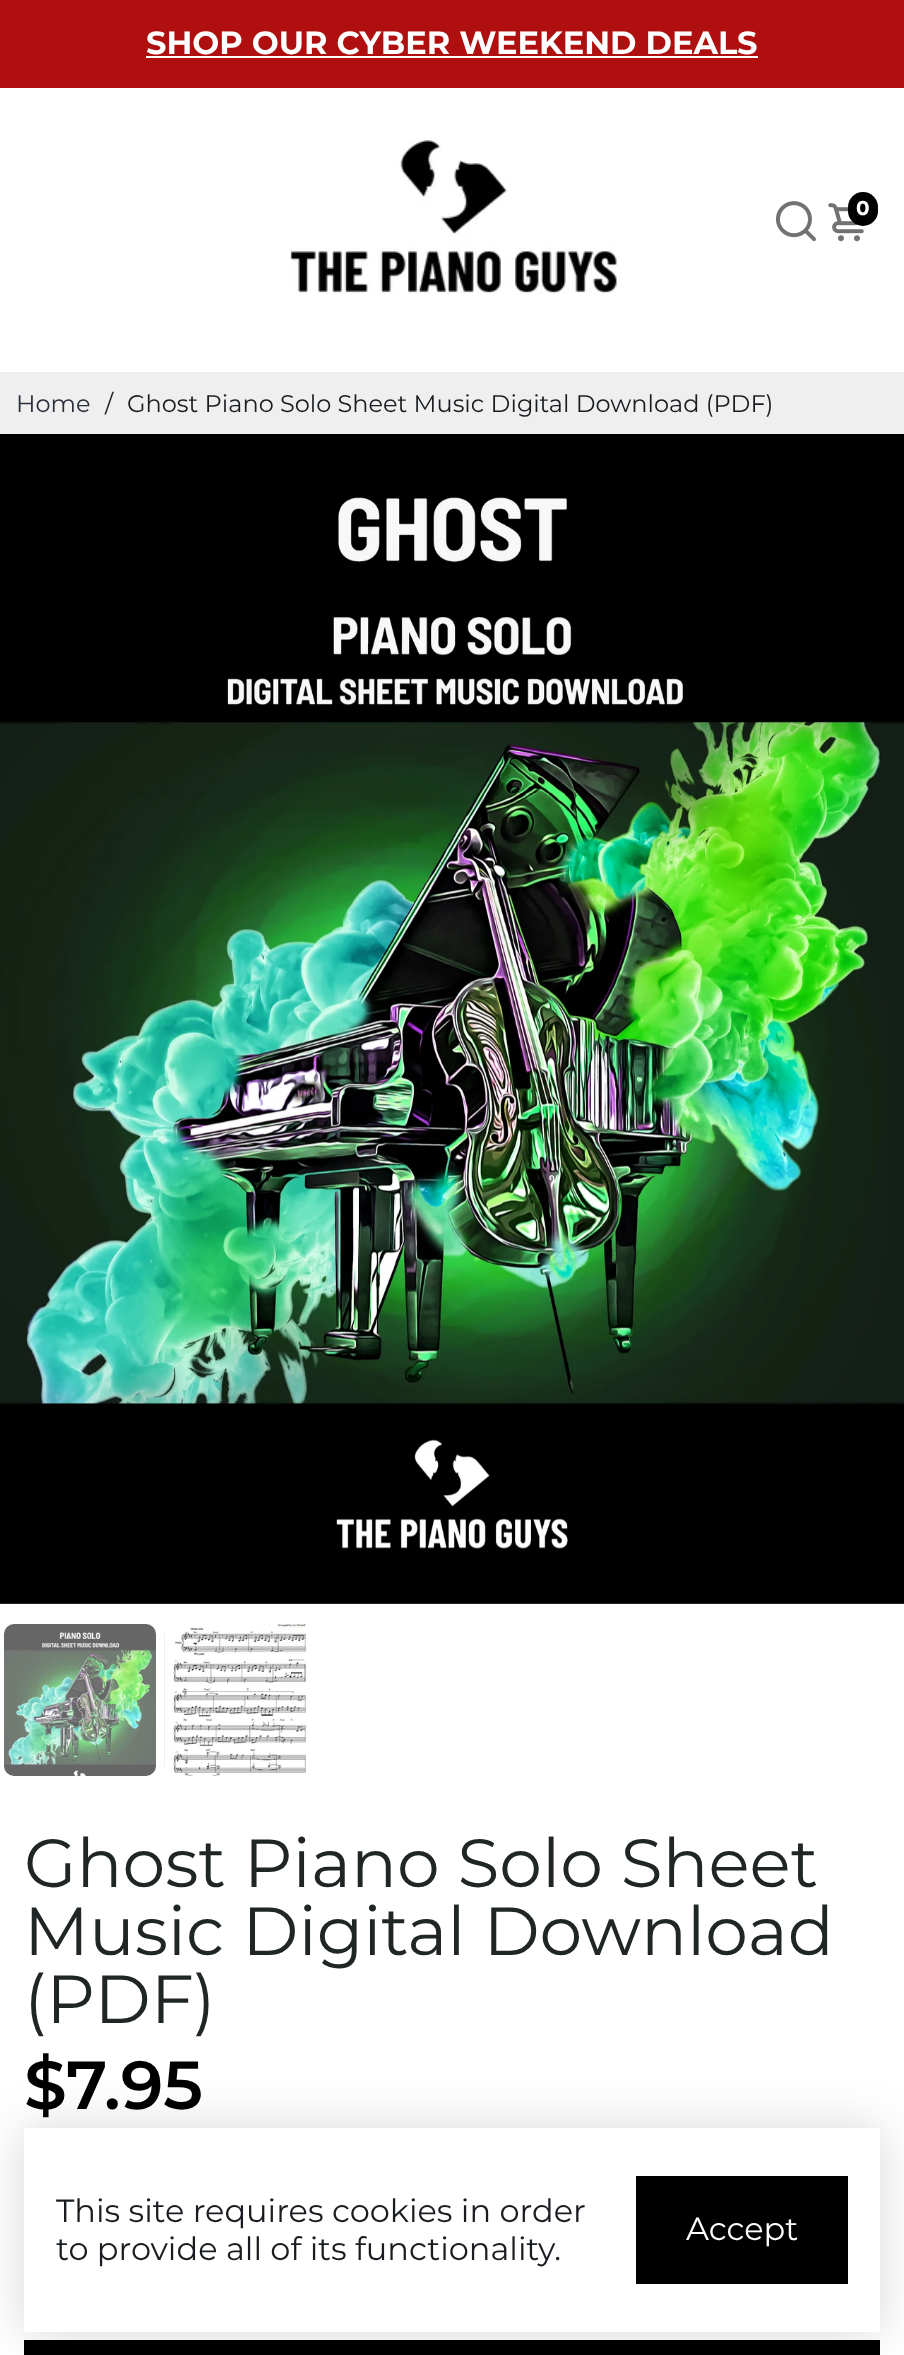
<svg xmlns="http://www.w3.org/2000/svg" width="904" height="2355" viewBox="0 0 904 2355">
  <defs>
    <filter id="blur1" x="-50%" y="-200%" width="200%" height="500%"><feGaussianBlur stdDeviation="24"/></filter>
  </defs>
  <rect width="100%" height="100%" fill="#ffffff"/>
  <rect x="0" y="0" width="904" height="88" fill="#af0f0f"/>
  <text x="146" y="54" font-family="Montserrat" font-size="32" font-weight="bold" fill="#ffffff">SHOP OUR CYBER WEEKEND DEALS</text>
  <rect x="146" y="56" width="612" height="2" fill="#ffffff"/>
  <image x="290" y="138" width="328" height="156" href="img1.png"/>
  <image x="775" y="201" width="41" height="41" href="img2.png"/>
  <image x="828" y="203" width="36" height="39" href="img3.png"/>
  <rect x="848" y="192" width="30" height="34" rx="15" fill="#000000"/>
  <text x="856" y="215" font-family="Montserrat" font-size="20" font-weight="bold" fill="#ffffff">0</text>
  <rect x="0" y="372" width="904" height="62" fill="#efefef"/>
  <text x="16" y="412" font-family="Montserrat" font-size="24" fill="#2b2f3d">Home</text>
  <text x="105" y="412" font-family="Montserrat" font-size="24" fill="#191d21">/</text>
  <text x="127" y="412" font-family="Montserrat" font-size="24" fill="#191d21">Ghost Piano Solo Sheet Music Digital Download (PDF)</text>
  <image x="0" y="434" width="904" height="1170" href="img4.png"/>
  <image x="4" y="1624" width="152" height="152" href="img5.png"/>
  <image x="164" y="1624" width="143" height="152" href="img6.png"/>
  <text x="24" y="1887" font-family="Montserrat" font-size="68" fill="#202626">Ghost Piano Solo Sheet</text>
  <text x="24" y="1955" font-family="Montserrat" font-size="68" fill="#202626">Music Digital Download</text>
  <text x="24" y="2023" font-family="Montserrat" font-size="68" fill="#202626">(PDF)</text>
  <text x="24" y="2109" font-family="Montserrat" font-size="68" font-weight="600" fill="#000000">$7.95</text>
  <rect x="24" y="2340" width="856" height="15" fill="#000000"/>
  <rect x="24" y="2128" width="856" height="204" fill="#000000" fill-opacity="0.16" filter="url(#blur1)"/>
  <rect x="24" y="2128" width="856" height="204" fill="#ffffff"/>
  <text x="56" y="2222" font-family="Montserrat" font-size="32" fill="#191d21">This site requires cookies in order</text>
  <text x="56" y="2260" font-family="Montserrat" font-size="32" fill="#191d21">to provide all of its functionality.</text>
  <rect x="636" y="2176" width="212" height="108" fill="#000000"/>
  <text x="686" y="2240" font-family="Montserrat" font-size="32" fill="#ffffff">Accept</text>
</svg>
